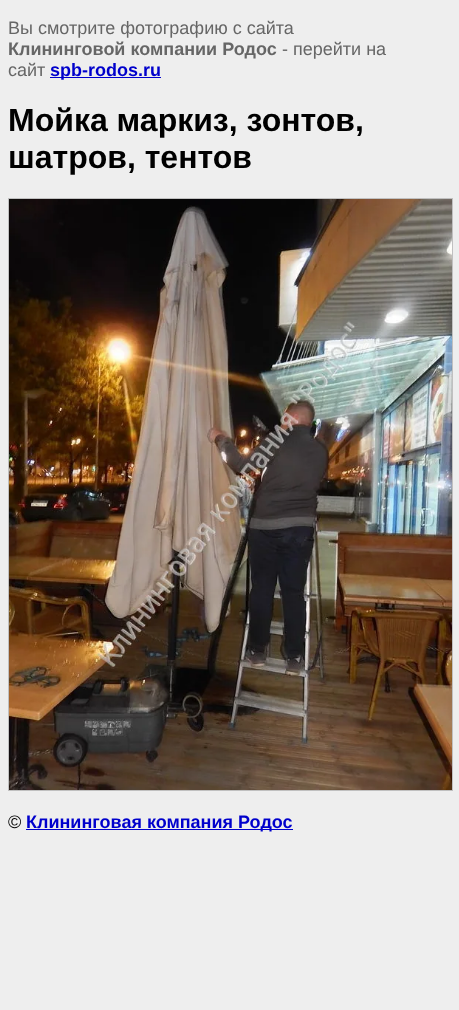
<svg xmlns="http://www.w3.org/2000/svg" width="459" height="1010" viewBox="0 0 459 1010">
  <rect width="100%" height="100%" fill="#eeeeee"/>
  <text x="8" y="34" font-family="Liberation Sans" font-size="18" fill="#666666">Вы смотрите фотографию с сайта</text>
  <text x="8" y="55" font-family="Liberation Sans" font-size="18" font-weight="bold" fill="#666666">Клининговой компании Родос</text>
  <text x="282" y="55" font-family="Liberation Sans" font-size="18" fill="#666666">- перейти на</text>
  <text x="8" y="76" font-family="Liberation Sans" font-size="18" fill="#666666">сайт</text>
  <rect x="50" y="77" width="111" height="1" fill="#0000cc"/>
  <text x="50" y="76" font-family="Liberation Sans" font-size="18" font-weight="bold" fill="#0000cc">spb-rodos.ru</text>
  <text x="8" y="131" font-family="Liberation Sans" font-size="32" font-weight="bold" fill="#000000">Мойка маркиз, зонтов,</text>
  <text x="8" y="168" font-family="Liberation Sans" font-size="32" font-weight="bold" fill="#000000">шатров, тентов</text>
  <rect x="8.5" y="198.5" width="444" height="592" fill="none" stroke="#c0c0c0"/>
  <image x="9" y="199" width="443" height="591" href="img1.png"/>
  <text x="8" y="828" font-family="Liberation Sans" font-size="18" fill="#000000">©</text>
  <rect x="26" y="829" width="267" height="1" fill="#0000cc"/>
  <text x="26" y="828" font-family="Liberation Sans" font-size="18" font-weight="bold" fill="#0000cc">Клининговая компания Родос</text>
</svg>
